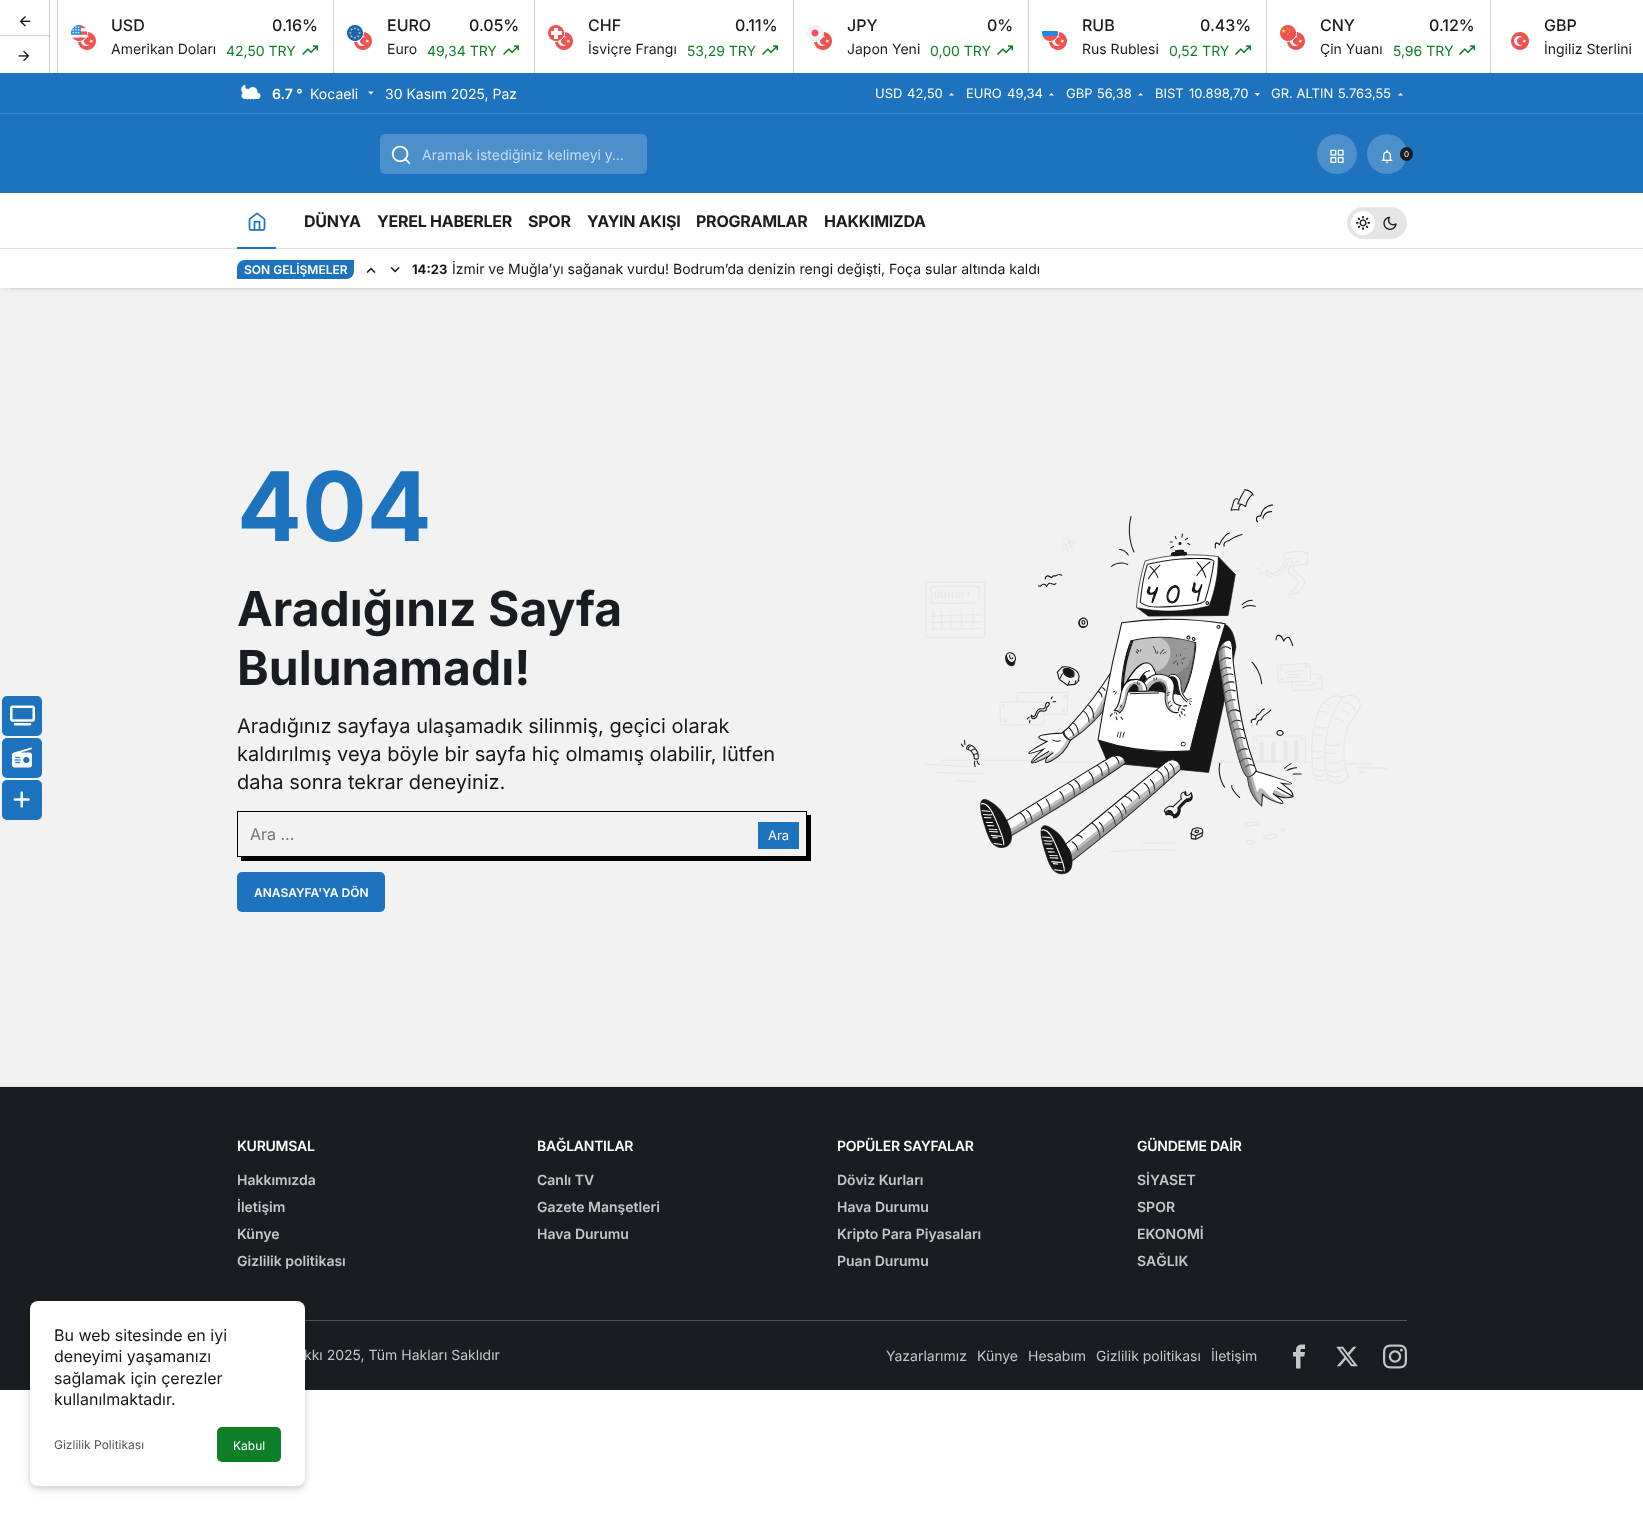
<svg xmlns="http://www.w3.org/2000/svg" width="1643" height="1516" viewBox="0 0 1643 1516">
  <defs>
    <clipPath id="clip1"><rect x="1042" y="25" width="16" height="16" rx="8"/></clipPath>
    <filter id="blur1" x="-50%" y="-200%" width="200%" height="500%"><feGaussianBlur stdDeviation="1"/></filter>
    <filter id="blur2" x="-50%" y="-200%" width="200%" height="500%"><feGaussianBlur stdDeviation="2.5"/></filter>
    <clipPath id="clip2"><rect x="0" y="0" width="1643" height="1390"/></clipPath>
    <filter id="blur3" x="-50%" y="-200%" width="200%" height="500%"><feGaussianBlur stdDeviation="2"/></filter>
    <filter id="blur4" x="-50%" y="-200%" width="200%" height="500%"><feGaussianBlur stdDeviation="4"/></filter>
  </defs>
  <rect width="100%" height="100%" fill="#ffffff"/>
  <rect x="0" y="288" width="1643" height="799" fill="#f2f2f3"/>
  <rect x="2" y="696" width="40" height="40" rx="5" fill="#1e73be"/>
  <image x="10" y="705" width="25" height="21" href="img1.png"/>
  <rect x="2" y="738" width="40" height="40" rx="5" fill="#1e73be"/>
  <image x="12" y="747" width="20" height="21" href="img2.png"/>
  <rect x="2" y="780" width="40" height="40" rx="5" fill="#1e73be"/>
  <image x="13" y="791" width="17" height="17" href="img3.png"/>
  <rect x="49" y="0" width="1" height="38" fill="#ced0d4"/>
  <image x="19" y="16" width="12" height="11" href="img4.png"/>
  <rect x="57" y="0" width="1" height="73" fill="#ced0d4"/>
  <rect x="333" y="0" width="1" height="73" fill="#ced0d4"/>
  <image x="78" y="32" width="18" height="18" href="img6.png"/>
  <circle cx="79" cy="33" r="8.5" fill="none" stroke="#ffffff"/>
  <image x="71" y="25" width="16" height="16" href="img5.png"/>
  <text x="111" y="31" font-family="Inter" font-size="16" font-weight="500" fill="#191c20">USD</text>
  <text x="272" y="31" font-family="Inter" font-size="16" font-weight="500" fill="#191c20">0.16%</text>
  <text x="111" y="54" font-family="Inter" font-size="14" fill="#191c20">Amerikan Doları</text>
  <text x="226" y="56" font-family="Inter" font-size="14" fill="#0f7e29">42,50 TRY</text>
  <image x="302" y="45" width="16" height="10" href="img7.png"/>
  <rect x="534" y="0" width="1" height="73" fill="#ced0d4"/>
  <image x="354" y="32" width="18" height="18" href="img6.png"/>
  <circle cx="355" cy="33" r="8.5" fill="none" stroke="#ffffff"/>
  <image x="347" y="25" width="16" height="16" href="img8.png"/>
  <text x="387" y="31" font-family="Inter" font-size="16" font-weight="500" fill="#191c20">EURO</text>
  <text x="469" y="31" font-family="Inter" font-size="16" font-weight="500" fill="#191c20">0.05%</text>
  <text x="387" y="54" font-family="Inter" font-size="14" fill="#191c20">Euro</text>
  <text x="427" y="56" font-family="Inter" font-size="14" fill="#0f7e29">49,34 TRY</text>
  <image x="503" y="45" width="16" height="10" href="img7.png"/>
  <rect x="793" y="0" width="1" height="73" fill="#ced0d4"/>
  <image x="555" y="32" width="18" height="18" href="img6.png"/>
  <circle cx="556" cy="33" r="8.5" fill="none" stroke="#ffffff"/>
  <circle cx="556" cy="33" r="8" fill="#ef5350"/>
  <rect x="551" y="31" width="11" height="4" fill="#f8f9fd"/>
  <rect x="554" y="28" width="4" height="11" fill="#f8f9fd"/>
  <text x="588" y="31" font-family="Inter" font-size="16" font-weight="500" fill="#191c20">CHF</text>
  <text x="735" y="31" font-family="Inter" font-size="16" font-weight="500" fill="#191c20">0.11%</text>
  <text x="588" y="54" font-family="Inter" font-size="14" fill="#191c20">İsviçre Frangı</text>
  <text x="687" y="56" font-family="Inter" font-size="14" fill="#0f7e29">53,29 TRY</text>
  <image x="762" y="45" width="16" height="10" href="img7.png"/>
  <rect x="1028" y="0" width="1" height="73" fill="#ced0d4"/>
  <image x="814" y="32" width="18" height="18" href="img6.png"/>
  <circle cx="815" cy="33" r="8.5" fill="none" stroke="#ffffff"/>
  <image x="807" y="25" width="16" height="16" href="img9.png"/>
  <text x="847" y="31" font-family="Inter" font-size="16" font-weight="500" fill="#191c20">JPY</text>
  <text x="987" y="31" font-family="Inter" font-size="16" font-weight="500" fill="#191c20">0%</text>
  <text x="847" y="54" font-family="Inter" font-size="14" fill="#191c20">Japon Yeni</text>
  <text x="930" y="56" font-family="Inter" font-size="14" fill="#0f7e29">0,00 TRY</text>
  <image x="997" y="45" width="16" height="10" href="img7.png"/>
  <rect x="1266" y="0" width="1" height="73" fill="#ced0d4"/>
  <image x="1049" y="32" width="18" height="18" href="img6.png"/>
  <circle cx="1050" cy="33" r="8.5" fill="none" stroke="#ffffff"/>
  <g clip-path="url(#clip1)">
    <rect x="1042" y="25" width="16" height="6" fill="#f8f9fd"/>
    <rect x="1042" y="31" width="16" height="5" fill="#1e88e5"/>
    <rect x="1042" y="36" width="16" height="5" fill="#ef5350"/>
  </g>
  <text x="1082" y="31" font-family="Inter" font-size="16" font-weight="500" fill="#191c20">RUB</text>
  <text x="1200" y="31" font-family="Inter" font-size="16" font-weight="500" fill="#191c20">0.43%</text>
  <text x="1082" y="54" font-family="Inter" font-size="14" fill="#191c20">Rus Rublesi</text>
  <text x="1169" y="56" font-family="Inter" font-size="14" fill="#0f7e29">0,52 TRY</text>
  <image x="1235" y="45" width="16" height="10" href="img7.png"/>
  <rect x="1490" y="0" width="1" height="73" fill="#ced0d4"/>
  <image x="1287" y="32" width="18" height="18" href="img6.png"/>
  <circle cx="1288" cy="33" r="8.5" fill="none" stroke="#ffffff"/>
  <image x="1280" y="25" width="16" height="16" href="img10.png"/>
  <text x="1320" y="31" font-family="Inter" font-size="16" font-weight="500" fill="#191c20">CNY</text>
  <text x="1429" y="31" font-family="Inter" font-size="16" font-weight="500" fill="#191c20">0.12%</text>
  <text x="1320" y="54" font-family="Inter" font-size="14" fill="#191c20">Çin Yuanı</text>
  <text x="1393" y="56" font-family="Inter" font-size="14" fill="#0f7e29">5,96 TRY</text>
  <image x="1459" y="45" width="16" height="10" href="img7.png"/>
  <image x="1511" y="32" width="18" height="18" href="img6.png"/>
  <text x="1544" y="31" font-family="Inter" font-size="16" font-weight="500" fill="#191c20">GBP</text>
  <text x="1544" y="54" font-family="Inter" font-size="14" fill="#191c20">İngiliz Sterlini</text>
  <path d="M0 35H50L49 36H0Z" fill="#ced0d4"/>
  <path d="M50 35V73H49V36Z" fill="#5b616e" fill-opacity="0.3"/>
  <image x="18" y="50" width="12" height="12" href="img11.png"/>
  <rect x="0" y="73" width="1643" height="120" fill="#1e73be"/>
  <image x="241" y="84" width="20" height="16" href="img12.png"/>
  <text x="272" y="99" font-family="Inter" font-size="14" font-weight="600" fill="#ffffff">6.7 °</text>
  <text x="310" y="99" font-family="Inter" font-size="14" fill="#ffffff">Kocaeli</text>
  <path d="M373.5 91.5L371 94.5L368 91.5Z" fill="#ffffff"/>
  <text x="385" y="99" font-family="Inter" font-size="14" fill="#ffffff">30 Kasım 2025, Paz</text>
  <text x="875" y="98" font-family="Inter" font-size="13" fill="#ffffff">USD</text>
  <text x="907" y="98" font-family="Inter" font-size="13" fill="#ffffff">42,50</text>
  <path d="M949 95.5L951.5 93L954 95.5Z" fill="#ffffff"/>
  <text x="966" y="98" font-family="Inter" font-size="13" fill="#ffffff">EURO</text>
  <text x="1007" y="98" font-family="Inter" font-size="13" fill="#ffffff">49,34</text>
  <path d="M1049 95.5L1051.5 93L1054 95.5Z" fill="#ffffff"/>
  <text x="1066" y="98" font-family="Inter" font-size="13" fill="#ffffff">GBP</text>
  <text x="1097" y="98" font-family="Inter" font-size="13" fill="#ffffff">56,38</text>
  <path d="M1138 95.5L1140.5 93L1143 95.5Z" fill="#ffffff"/>
  <text x="1155" y="98" font-family="Inter" font-size="13" fill="#ffffff">BIST</text>
  <text x="1189" y="98" font-family="Inter" font-size="13" fill="#ffffff">10.898,70</text>
  <path d="M1260 93L1257.5 96L1254.5 93Z" fill="#ffffff"/>
  <text x="1271" y="98" font-family="Inter" font-size="13" fill="#ffffff">GR. ALTIN</text>
  <text x="1338" y="98" font-family="Inter" font-size="13" fill="#ffffff">5.763,55</text>
  <path d="M1398 95.5L1400.5 93L1403 95.5Z" fill="#ffffff"/>
  <rect x="0" y="113" width="1643" height="1" fill="#4088c8"/>
  <rect x="380" y="134" width="267" height="40" rx="5" fill="#4b8fcb"/>
  <image x="391" y="145" width="20" height="19" href="img13.png"/>
  <text x="422" y="160" font-family="Inter" font-size="14" fill="#c9ddef">Aramak istediğiniz kelimeyi y…</text>
  <circle cx="1337" cy="154" r="20" fill="#4b8fcb"/>
  <image x="1330" y="149" width="14" height="14" href="img14.png"/>
  <circle cx="1387" cy="154" r="20" fill="#4b8fcb"/>
  <image x="1381" y="150" width="12" height="13" href="img15.png"/>
  <rect x="1400" y="147" width="13" height="14" rx="6.5" fill="#191c20"/>
  <text x="1404" y="157" font-family="Inter" font-size="8" fill="#ffffff">0</text>
  <rect x="10" y="249" width="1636" height="40" fill="#000000" fill-opacity="0.1" filter="url(#blur1)"/>
  <rect x="1" y="248" width="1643" height="40" fill="#000000" fill-opacity="0.1" filter="url(#blur2)"/>
  <rect x="0" y="245" width="1643" height="3" fill="#ffffff"/>
  <image x="248" y="212" width="18" height="19" href="img16.png"/>
  <rect x="0" y="248" width="1643" height="1" fill="#dedfe2"/>
  <rect x="237" y="247" width="39" height="2" fill="#1e73be"/>
  <text x="304" y="227" font-family="Inter" font-size="16" font-weight="bold" letter-spacing="-0.25" fill="#191c20">DÜNYA</text>
  <text x="377" y="227" font-family="Inter" font-size="16" font-weight="bold" letter-spacing="-0.25" fill="#191c20">YEREL HABERLER</text>
  <text x="528" y="227" font-family="Inter" font-size="16" font-weight="bold" letter-spacing="-0.25" fill="#191c20">SPOR</text>
  <text x="587" y="227" font-family="Inter" font-size="16" font-weight="bold" letter-spacing="-0.25" fill="#191c20">YAYIN AKIŞI</text>
  <text x="696" y="227" font-family="Inter" font-size="16" font-weight="bold" letter-spacing="-0.25" fill="#191c20">PROGRAMLAR</text>
  <text x="824" y="227" font-family="Inter" font-size="16" font-weight="bold" letter-spacing="-0.25" fill="#191c20">HAKKIMIZDA</text>
  <rect x="1347" y="207" width="60" height="32" rx="16" fill="#e5e5e5"/>
  <circle cx="1363" cy="223" r="12" fill="#ffffff"/>
  <image x="1356" y="216" width="14" height="14" href="img17.png"/>
  <image x="1383" y="216" width="14" height="14" href="img18.png"/>
  <rect x="0" y="249" width="1643" height="39" fill="#ffffff"/>
  <path d="M245 260H354V271C354 275.5 350.5 279 346 279H237V268C237 263.5 240.5 260 245 260Z" fill="#1e73be"/>
  <text x="244" y="274" font-family="Inter" font-size="12" font-weight="600" fill="#ffffff">SON GELİŞMELER</text>
  <image x="366" y="267" width="10" height="6" href="img19.png"/>
  <image x="390" y="267" width="10" height="6" href="img20.png"/>
  <text x="412" y="274" font-family="Inter" font-size="13" font-weight="bold" fill="#161616">14:23</text>
  <text x="452" y="274" font-family="Inter" font-size="14" fill="#161616">İzmir ve Muğla’yı sağanak vurdu! Bodrum’da denizin rengi değişti, Foça sular altında kaldı</text>
  <text x="237" y="541" font-family="Inter" font-size="96" font-weight="bold" fill="#1e73be">404</text>
  <text x="237" y="626" font-family="Inter" font-size="48" font-weight="bold" fill="#191c20">Aradığınız Sayfa</text>
  <text x="237" y="685" font-family="Inter" font-size="48" font-weight="bold" fill="#191c20">Bulunamadı!</text>
  <text x="237" y="733" font-family="Inter" font-size="20" fill="#161616">Aradığınız sayfaya ulaşamadık silinmiş, geçici olarak</text>
  <text x="237" y="761" font-family="Inter" font-size="20" fill="#161616">kaldırılmış veya böyle bir sayfa hiç olmamış olabilir, lütfen</text>
  <text x="237" y="789" font-family="Inter" font-size="20" fill="#161616">daha sonra tekrar deneyiniz.</text>
  <path d="M241 857V861H811V815H807V857Z" fill="#000000"/>
  <rect x="237.5" y="811.5" width="569" height="45" fill="none" stroke="#000000"/>
  <text x="250" y="840" font-family="Inter" font-size="16" fill="#757575">Ara …</text>
  <rect x="758" y="822" width="41" height="27" fill="#1e73be"/>
  <text x="768" y="840" font-family="Inter" font-size="13" fill="#ffffff">Ara</text>
  <rect x="237" y="872" width="148" height="40" rx="5" fill="#1e73be"/>
  <text x="254" y="897" font-family="Inter" font-size="12" font-weight="600" fill="#ffffff">ANASAYFA'YA DÖN</text>
  <image x="924" y="489" width="463" height="386" href="img21.png"/>
  <g clip-path="url(#clip2)">
    <rect x="0" y="1087" width="1643" height="303" fill="#32353d" fill-opacity="0.1" filter="url(#blur2)"/>
  </g>
  <rect x="0" y="1087" width="1643" height="303" fill="#191c20"/>
  <text x="237" y="1151" font-family="Inter" font-size="14" font-weight="600" letter-spacing="-0.25" fill="#ffffff">KURUMSAL</text>
  <text x="237" y="1185" font-family="Inter" font-size="14" font-weight="600" fill="#c6c6c7">Hakkımızda</text>
  <text x="237" y="1212" font-family="Inter" font-size="14" font-weight="600" fill="#c6c6c7">İletişim</text>
  <text x="237" y="1239" font-family="Inter" font-size="14" font-weight="600" fill="#c6c6c7">Künye</text>
  <text x="237" y="1266" font-family="Inter" font-size="14" font-weight="600" fill="#c6c6c7">Gizlilik politikası</text>
  <text x="537" y="1151" font-family="Inter" font-size="14" font-weight="600" letter-spacing="-0.25" fill="#ffffff">BAĞLANTILAR</text>
  <text x="537" y="1185" font-family="Inter" font-size="14" font-weight="600" fill="#c6c6c7">Canlı TV</text>
  <text x="537" y="1212" font-family="Inter" font-size="14" font-weight="600" fill="#c6c6c7">Gazete Manşetleri</text>
  <text x="537" y="1239" font-family="Inter" font-size="14" font-weight="600" fill="#c6c6c7">Hava Durumu</text>
  <text x="837" y="1151" font-family="Inter" font-size="14" font-weight="600" letter-spacing="-0.25" fill="#ffffff">POPÜLER SAYFALAR</text>
  <text x="837" y="1185" font-family="Inter" font-size="14" font-weight="600" fill="#c6c6c7">Döviz Kurları</text>
  <text x="837" y="1212" font-family="Inter" font-size="14" font-weight="600" fill="#c6c6c7">Hava Durumu</text>
  <text x="837" y="1239" font-family="Inter" font-size="14" font-weight="600" fill="#c6c6c7">Kripto Para Piyasaları</text>
  <text x="837" y="1266" font-family="Inter" font-size="14" font-weight="600" fill="#c6c6c7">Puan Durumu</text>
  <text x="1137" y="1151" font-family="Inter" font-size="14" font-weight="600" letter-spacing="-0.25" fill="#ffffff">GÜNDEME DAİR</text>
  <text x="1137" y="1185" font-family="Inter" font-size="14" font-weight="600" fill="#c6c6c7">SİYASET</text>
  <text x="1137" y="1212" font-family="Inter" font-size="14" font-weight="600" fill="#c6c6c7">SPOR</text>
  <text x="1137" y="1239" font-family="Inter" font-size="14" font-weight="600" fill="#c6c6c7">EKONOMİ</text>
  <text x="1137" y="1266" font-family="Inter" font-size="14" font-weight="600" fill="#c6c6c7">SAĞLIK</text>
  <rect x="305" y="1320" width="1102" height="1" fill="#535558"/>
  <text x="304" y="1360" font-family="Inter" font-size="14" fill="#c6c6c7">kkı 2025, Tüm Hakları Saklıdır</text>
  <text x="886" y="1361" font-family="Inter" font-size="14" fill="#c6c6c7">Yazarlarımız</text>
  <text x="977" y="1361" font-family="Inter" font-size="14" fill="#c6c6c7">Künye</text>
  <text x="1028" y="1361" font-family="Inter" font-size="14" fill="#c6c6c7">Hesabım</text>
  <text x="1096" y="1361" font-family="Inter" font-size="14" fill="#c6c6c7">Gizlilik politikası</text>
  <text x="1211" y="1361" font-family="Inter" font-size="14" fill="#c6c6c7">İletişim</text>
  <image x="1293" y="1344" width="12" height="25" href="img22.png"/>
  <image x="1336" y="1346" width="22" height="21" href="img23.png"/>
  <image x="1383" y="1344" width="24" height="25" href="img24.png"/>
  <rect x="30" y="1303" width="275" height="185" rx="8" fill="#000000" fill-opacity="0.08" filter="url(#blur3)"/>
  <rect x="30" y="1305" width="275" height="185" rx="8" fill="#000000" fill-opacity="0.12" filter="url(#blur4)"/>
  <rect x="30" y="1301" width="275" height="185" rx="8" fill="#ffffff"/>
  <text x="54" y="1341" font-family="Inter" font-size="16" fill="#161616">Bu web sitesinde en iyi</text>
  <text x="54" y="1362" font-family="Inter" font-size="16" fill="#161616">deneyimi yaşamanızı</text>
  <text x="54" y="1384" font-family="Inter" font-size="16" fill="#161616">sağlamak için çerezler</text>
  <text x="54" y="1405" font-family="Inter" font-size="16" fill="#161616">kullanılmaktadır.</text>
  <text x="54" y="1449" font-family="Inter" font-size="12" fill="#535558">Gizlilik Politikası</text>
  <rect x="217" y="1427" width="64" height="35" rx="5" fill="#0f7e29"/>
  <text x="233" y="1450" font-family="Inter" font-size="12" fill="#ffffff">Kabul</text>
</svg>
